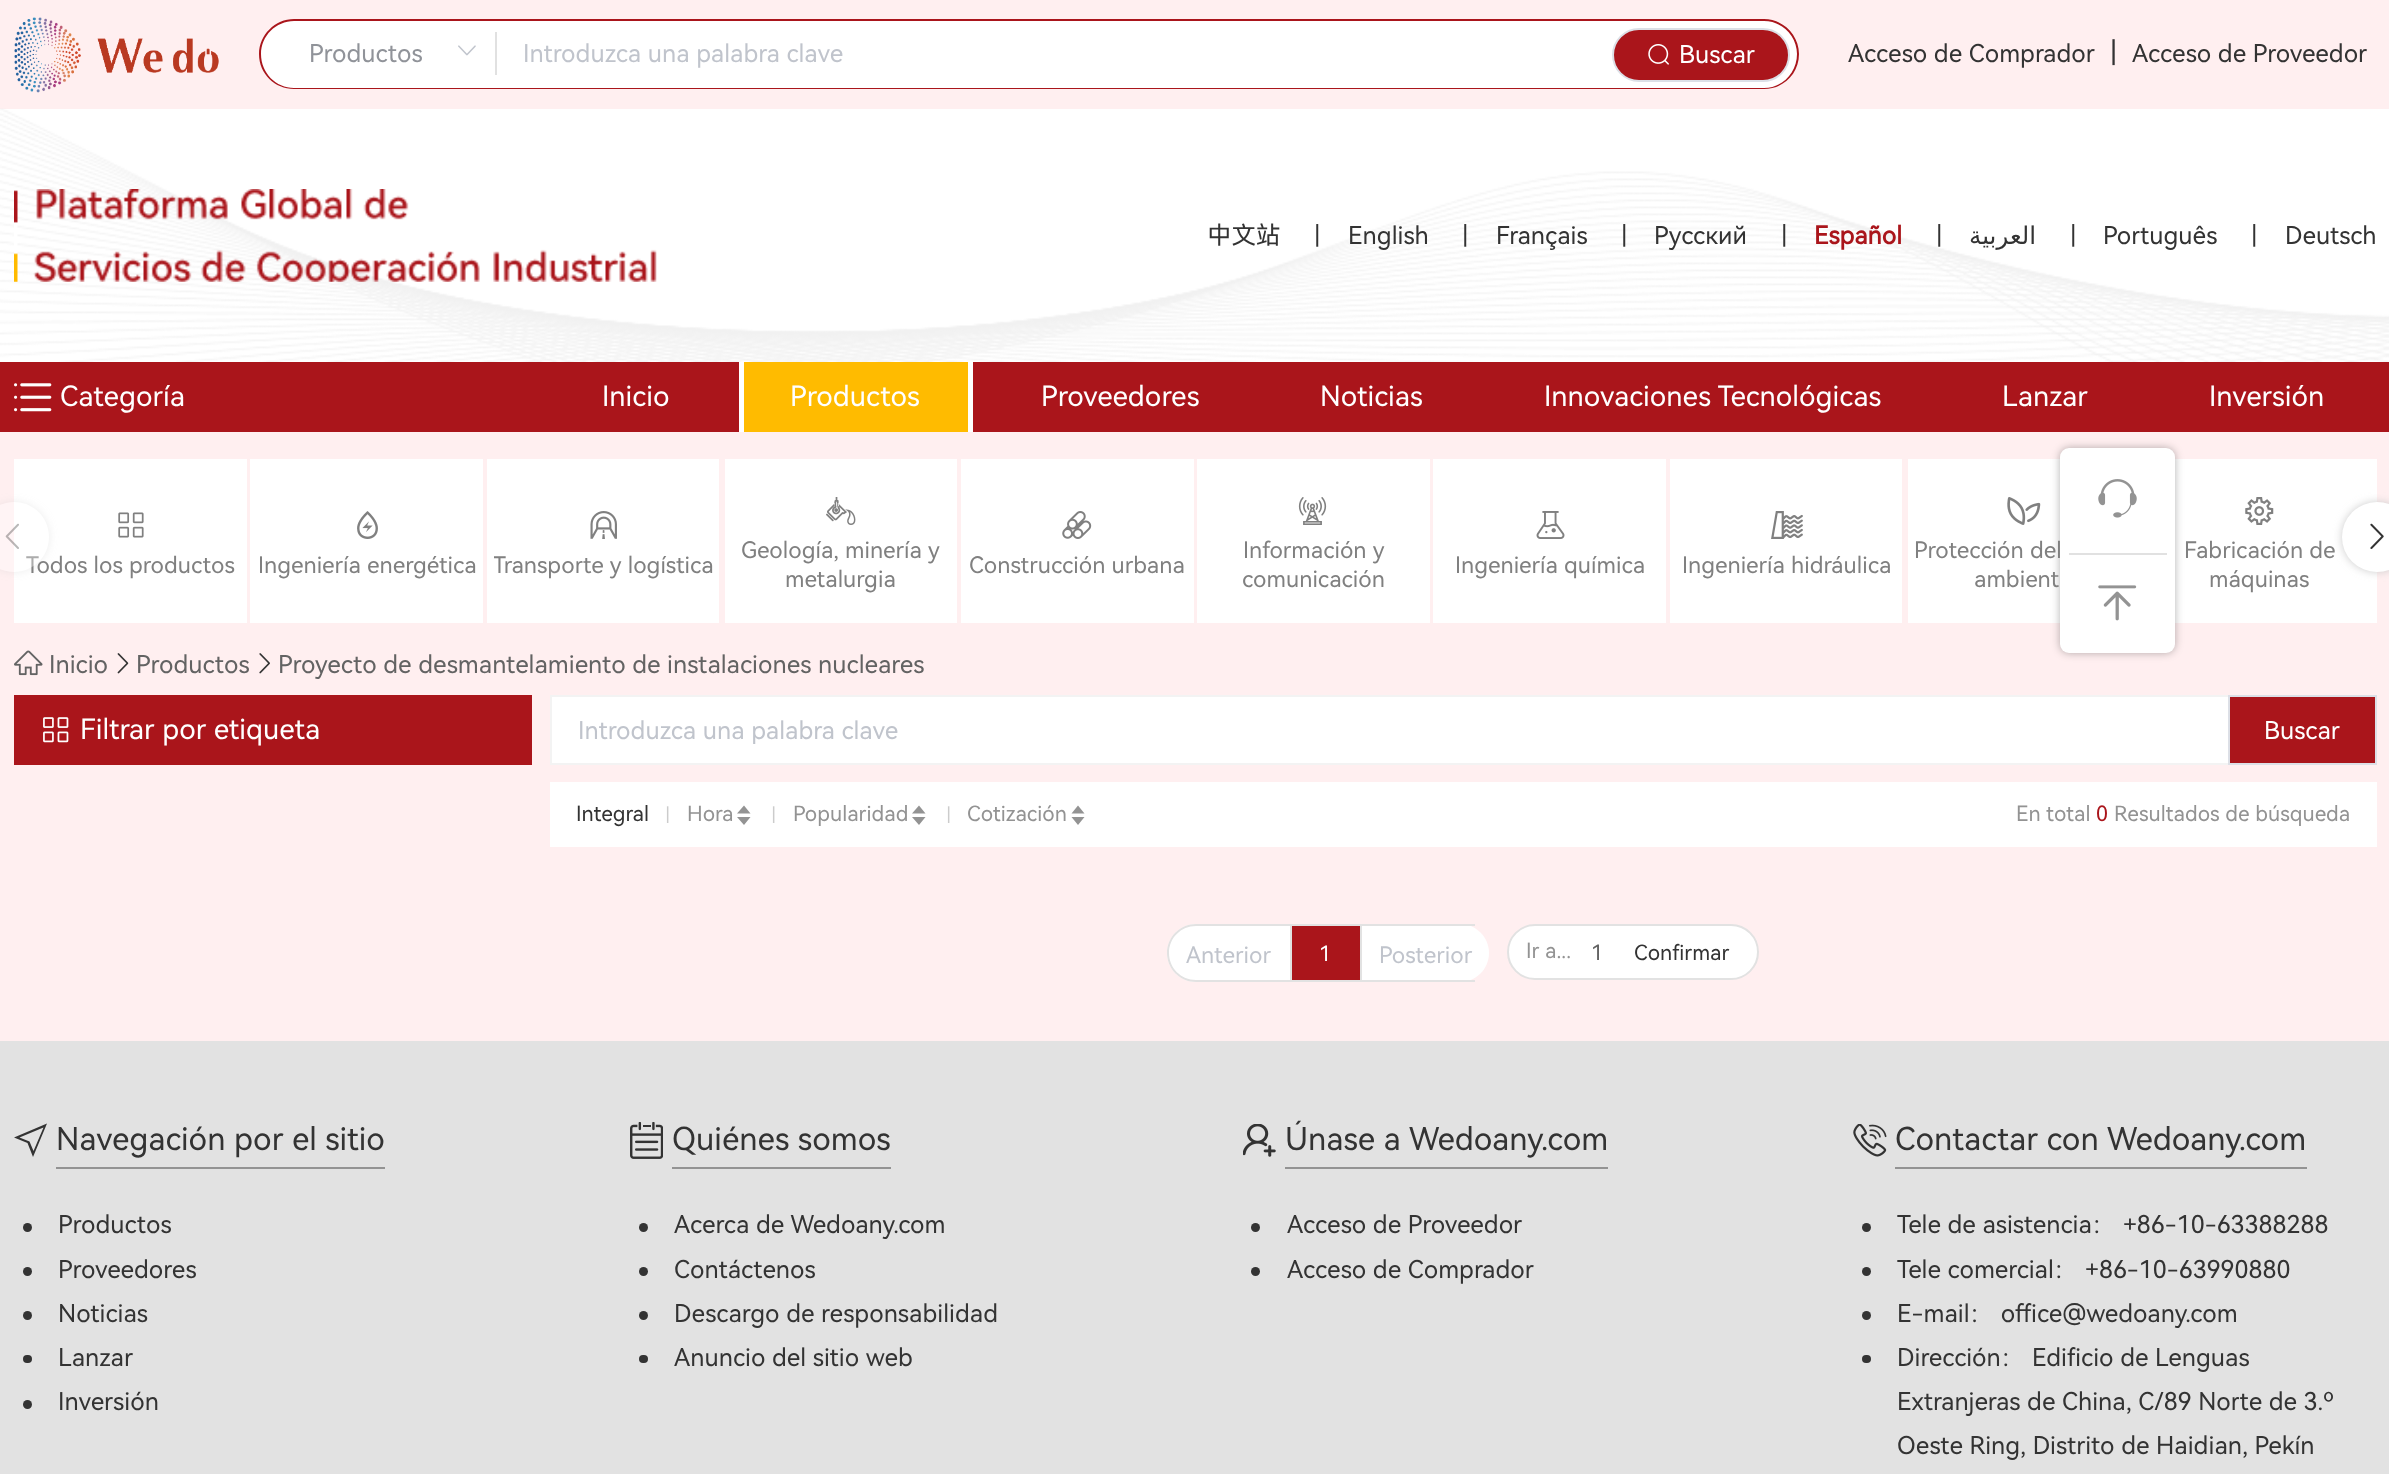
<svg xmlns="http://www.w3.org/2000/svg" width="2389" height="1474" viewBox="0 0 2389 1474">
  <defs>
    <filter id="blur1" x="-50%" y="-200%" width="200%" height="500%"><feGaussianBlur stdDeviation="4.5"/></filter>
    <clipPath id="clip1"><path d="M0 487H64V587H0ZM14 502C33.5 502 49 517.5 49 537C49 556.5 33.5 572 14 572C-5.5 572-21 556.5-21 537C-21 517.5-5.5 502 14 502Z" clip-rule="evenodd"/></clipPath>
    <clipPath id="clip2"><rect x="494" y="551" width="220" height="30"/></clipPath>
    <clipPath id="clip3"><rect x="578" y="716" width="1624" height="28"/></clipPath>
  </defs>
  <rect width="100%" height="100%" fill="#ffeff0"/>
  <image x="14" y="17" width="205" height="76" href="img1.png"/>
  <path d="M294 19H497V89H294C274.5 89 259 73.5 259 54C259 34.5 274.5 19 294 19Z" fill="#ffffff"/>
  <path d="M294 19H497V89H294C275 89 259 74 259 54C259 35 275 19 294 19ZM294 21H497V88H294C276 88 261 73 261 54C261 36 276 21 294 21Z" fill="#aa151b" fill-rule="evenodd"/>
  <rect x="495" y="32" width="2" height="43" fill="#e1e1e1"/>
  <text x="309" y="62" font-family="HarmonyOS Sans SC" font-size="24.5" fill="#909399">Productos</text>
  <image x="458" y="45" width="18" height="11" href="img2.png"/>
  <path d="M497 19H1764C1783.5 19 1799 34.5 1799 54C1799 73.5 1783.5 89 1764 89H497Z" fill="#ffffff"/>
  <path d="M497 19H1764C1783 19 1799 35 1799 54C1799 74 1783 89 1764 89H497ZM497 21H1764C1782 21 1797 36 1797 54C1797 73 1782 88 1764 88H497Z" fill="#aa151b" fill-rule="evenodd"/>
  <text x="523" y="62" font-family="HarmonyOS Sans SC" font-size="24.5" fill="#c0c4cc">Introduzca una palabra clave</text>
  <rect x="1613" y="29" width="176" height="52" rx="26" fill="#aa151b" stroke="#dcdfe6" stroke-width="2"/>
  <image x="1648" y="44" width="21" height="21" href="img3.png"/>
  <text x="1679" y="63" font-family="HarmonyOS Sans SC" font-size="24.5" fill="#ffffff">Buscar</text>
  <text x="1848" y="62" font-family="HarmonyOS Sans SC" font-size="24.5" fill="#333333">Acceso de Comprador</text>
  <text x="2111" y="62" font-family="HarmonyOS Sans SC" font-size="28" fill="#333333">|</text>
  <text x="2132" y="62" font-family="HarmonyOS Sans SC" font-size="24.5" fill="#333333">Acceso de Proveedor</text>
  <rect x="0" y="109" width="2389" height="253" fill="#ffffff"/>
  <image x="0" y="108" width="2389" height="254" href="img4.png"/>
  <image x="14" y="189" width="643" height="93" href="img5.png"/>
  <text x="1207" y="244" font-family="HarmonyOS Sans SC" font-size="24.5" fill="#333333">中文站</text>
  <text x="1315" y="244" font-family="HarmonyOS Sans SC" font-size="24.5" fill="#333333">|</text>
  <text x="1348" y="244" font-family="HarmonyOS Sans SC" font-size="24.5" fill="#333333">English</text>
  <text x="1463" y="244" font-family="HarmonyOS Sans SC" font-size="24.5" fill="#333333">|</text>
  <text x="1496" y="244" font-family="HarmonyOS Sans SC" font-size="24.5" fill="#333333">Français</text>
  <text x="1622" y="244" font-family="HarmonyOS Sans SC" font-size="24.5" fill="#333333">|</text>
  <text x="1654" y="244" font-family="HarmonyOS Sans SC" font-size="24.5" fill="#333333">Русский</text>
  <text x="1782" y="244" font-family="HarmonyOS Sans SC" font-size="24.5" fill="#333333">|</text>
  <text x="1814" y="244" font-family="HarmonyOS Sans SC" font-size="24.5" font-weight="bold" fill="#aa151b">Español</text>
  <text x="1937" y="244" font-family="HarmonyOS Sans SC" font-size="24.5" fill="#333333">|</text>
  <text x="2036" y="244" font-family="DejaVu Sans" font-size="24.5" direction="rtl" fill="#333333">العربية</text>
  <text x="2071" y="244" font-family="HarmonyOS Sans SC" font-size="24.5" fill="#333333">|</text>
  <text x="2103" y="244" font-family="HarmonyOS Sans SC" font-size="24.5" fill="#333333">Português</text>
  <text x="2252" y="244" font-family="HarmonyOS Sans SC" font-size="24.5" fill="#333333">|</text>
  <text x="2285" y="244" font-family="HarmonyOS Sans SC" font-size="24.5" fill="#333333">Deutsch</text>
  <rect x="0" y="362" width="2389" height="70" fill="#aa151b"/>
  <image x="14" y="383" width="38" height="29" href="img6.png"/>
  <text x="60" y="406" font-family="HarmonyOS Sans SC" font-size="28" fill="#ffffff">Categoría</text>
  <text x="602" y="406" font-family="HarmonyOS Sans SC" font-size="28" fill="#ffffff">Inicio</text>
  <rect x="744" y="362" width="224" height="70" fill="#ffbb00"/>
  <rect x="739" y="362" width="5" height="70" fill="#ffffff"/>
  <text x="790" y="406" font-family="HarmonyOS Sans SC" font-size="28" fill="#ffffff">Productos</text>
  <rect x="968" y="362" width="5" height="70" fill="#ffffff"/>
  <text x="1041" y="406" font-family="HarmonyOS Sans SC" font-size="28" fill="#ffffff">Proveedores</text>
  <text x="1320" y="406" font-family="HarmonyOS Sans SC" font-size="28" fill="#ffffff">Noticias</text>
  <text x="1544" y="406" font-family="HarmonyOS Sans SC" font-size="28" fill="#ffffff">Innovaciones Tecnológicas</text>
  <text x="2002" y="406" font-family="HarmonyOS Sans SC" font-size="28" fill="#ffffff">Lanzar</text>
  <text x="2209" y="406" font-family="HarmonyOS Sans SC" font-size="28" fill="#ffffff">Inversión</text>
  <rect x="1908" y="459" width="152" height="164" fill="#ffffff"/>
  <rect x="2175" y="459" width="202" height="164" fill="#ffffff"/>
  <rect x="2060" y="448" width="115" height="205" rx="9" fill="#000000" fill-opacity="0.3" filter="url(#blur1)"/>
  <rect x="2060" y="448" width="115" height="205" rx="9" fill="#ffffff"/>
  <rect x="2069" y="553" width="98" height="2" fill="#e1e1e1"/>
  <image x="2098" y="479" width="39" height="39" href="img7.png"/>
  <image x="2098" y="585" width="39" height="36" href="img8.png"/>
  <rect x="14" y="459" width="233" height="164" fill="#ffffff"/>
  <g clip-path="url(#clip1)">
    <rect x="-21" y="502" width="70" height="70" rx="35" fill="#cccccc" fill-opacity="0.35" filter="url(#blur1)"/>
  </g>
  <text x="26" y="573" font-family="HarmonyOS Sans SC" font-size="22.75" fill="#808080">Todos los productos</text>
  <circle cx="14" cy="537" r="35" fill="#ffffff" fill-opacity="0.35"/>
  <image x="5" y="523" width="14" height="26" href="img9.png"/>
  <image x="118" y="512" width="26" height="26" href="img10.png"/>
  <rect x="250" y="459" width="233" height="164" fill="#ffffff"/>
  <image x="357" y="511" width="21" height="28" href="img11.png"/>
  <text x="258" y="573" font-family="HarmonyOS Sans SC" font-size="22.75" fill="#808080">Ingeniería energética</text>
  <rect x="487" y="459" width="232" height="164" fill="#ffffff"/>
  <image x="590" y="511" width="27" height="28" href="img12.png"/>
  <g clip-path="url(#clip2)">
    <text x="493" y="573" font-family="HarmonyOS Sans SC" font-size="22.75" fill="#808080">Transporte y logística</text>
  </g>
  <rect x="725" y="459" width="232" height="164" fill="#ffffff"/>
  <image x="826" y="497" width="30" height="28" href="img13.png"/>
  <text x="741" y="558" font-family="HarmonyOS Sans SC" font-size="22.75" fill="#808080">Geología, minería y</text>
  <text x="785" y="587" font-family="HarmonyOS Sans SC" font-size="22.75" fill="#808080">metalurgia</text>
  <rect x="961" y="459" width="233" height="164" fill="#ffffff"/>
  <image x="1062" y="511" width="30" height="28" href="img14.png"/>
  <text x="969" y="573" font-family="HarmonyOS Sans SC" font-size="22.75" fill="#808080">Construcción urbana</text>
  <rect x="1197" y="459" width="233" height="164" fill="#ffffff"/>
  <image x="1298" y="497" width="29" height="28" href="img15.png"/>
  <text x="1243" y="558" font-family="HarmonyOS Sans SC" font-size="22.75" fill="#808080">Información y</text>
  <text x="1242" y="587" font-family="HarmonyOS Sans SC" font-size="22.75" fill="#808080">comunicación</text>
  <rect x="1433" y="459" width="233" height="164" fill="#ffffff"/>
  <image x="1536" y="511" width="29" height="28" href="img16.png"/>
  <text x="1455" y="573" font-family="HarmonyOS Sans SC" font-size="22.75" fill="#808080">Ingeniería química</text>
  <rect x="1670" y="459" width="232" height="164" fill="#ffffff"/>
  <image x="1771" y="511" width="32" height="28" href="img17.png"/>
  <text x="1682" y="573" font-family="HarmonyOS Sans SC" font-size="22.75" fill="#808080">Ingeniería hidráulica</text>
  <image x="2007" y="497" width="34" height="28" href="img18.png"/>
  <text x="1914" y="558" font-family="HarmonyOS Sans SC" font-size="22.75" fill="#808080">Protección del</text>
  <text x="1974" y="587" font-family="HarmonyOS Sans SC" font-size="22.75" fill="#808080">ambient</text>
  <image x="2245" y="497" width="29" height="28" href="img19.png"/>
  <text x="2184" y="558" font-family="HarmonyOS Sans SC" font-size="22.75" fill="#808080">Fabricación de</text>
  <text x="2209" y="587" font-family="HarmonyOS Sans SC" font-size="22.75" fill="#808080">máquinas</text>
  <rect x="2342" y="502" width="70" height="70" rx="35" fill="#cccccc" filter="url(#blur1)"/>
  <circle cx="2377" cy="537" r="35" fill="#ffffff"/>
  <image x="2370" y="523" width="14" height="26" href="img20.png"/>
  <image x="14" y="650" width="29" height="26" href="img21.png"/>
  <text x="49" y="673" font-family="HarmonyOS Sans SC" font-size="24.5" fill="#636363">Inicio</text>
  <image x="117" y="653" width="12" height="21" href="img22.png"/>
  <text x="136" y="673" font-family="HarmonyOS Sans SC" font-size="24.5" fill="#636363">Productos</text>
  <image x="259" y="653" width="11" height="21" href="img23.png"/>
  <text x="278" y="673" font-family="HarmonyOS Sans SC" font-size="24.5" fill="#636363">Proyecto de desmantelamiento de instalaciones nucleares</text>
  <rect x="14" y="695" width="518" height="70" fill="#aa151b"/>
  <image x="43" y="717" width="26" height="26" href="img24.png"/>
  <text x="80" y="739" font-family="HarmonyOS Sans SC" font-size="28" fill="#ffffff">Filtrar por etiqueta</text>
  <rect x="552" y="697" width="1676" height="66" fill="#ffffff"/>
  <rect x="550" y="695" width="1678" height="2" fill="#f3f3f3"/>
  <rect x="550" y="763" width="1678" height="2" fill="#f3f3f3"/>
  <rect x="550" y="695" width="2" height="70" fill="#f3f3f3"/>
  <g clip-path="url(#clip3)">
    <text x="578" y="739" font-family="HarmonyOS Sans SC" font-size="24.5" fill="#c0c4cc">Introduzca una palabra clave</text>
  </g>
  <rect x="2229" y="696" width="147" height="68" fill="#aa151b" stroke="#dcdfe6" stroke-width="2"/>
  <text x="2264" y="739" font-family="HarmonyOS Sans SC" font-size="24.5" fill="#ffffff">Buscar</text>
  <rect x="550" y="782" width="1827" height="65" fill="#ffffff"/>
  <text x="576" y="821" font-family="HarmonyOS Sans SC" font-size="21" fill="#333333">Integral</text>
  <text x="666" y="821" font-family="HarmonyOS Sans SC" font-size="18" fill="#cccccc">|</text>
  <text x="687" y="821" font-family="HarmonyOS Sans SC" font-size="21" fill="#939393">Hora</text>
  <path d="M744 805.5L737 813.5H750.5ZM737 817L744 825L750.5 817Z" fill="#939393"/>
  <text x="772" y="821" font-family="HarmonyOS Sans SC" font-size="18" fill="#cccccc">|</text>
  <text x="793" y="821" font-family="HarmonyOS Sans SC" font-size="21" fill="#939393">Popularidad</text>
  <path d="M919 805.5L912 813.5H925.5ZM912 817L919 825L925.5 817Z" fill="#939393"/>
  <text x="947" y="821" font-family="HarmonyOS Sans SC" font-size="18" fill="#cccccc">|</text>
  <text x="967" y="821" font-family="HarmonyOS Sans SC" font-size="21" fill="#939393">Cotización</text>
  <path d="M1078 805.5L1071.5 813.5H1084.5ZM1071.5 817L1078 825L1084.5 817Z" fill="#939393"/>
  <text x="2016" y="821" font-family="HarmonyOS Sans SC" font-size="21" fill="#939393">En total</text>
  <text x="2096" y="821" font-family="HarmonyOS Sans SC" font-size="21" fill="#aa151b">0</text>
  <text x="2114" y="821" font-family="HarmonyOS Sans SC" font-size="21" fill="#939393">Resultados de búsqueda</text>
  <path d="M1196 924H1290V982H1196C1180 982 1167 969 1167 953C1167 937 1180 924 1196 924Z" fill="#ffffff"/>
  <path d="M1196 924H1290V982H1196C1180 982 1167 969 1167 953C1167 937 1180 924 1196 924ZM1196 926H1290V980H1196C1181 980 1169 968 1169 953C1169 938 1181 926 1196 926Z" fill="#e2e2e2" fill-rule="evenodd"/>
  <text x="1186" y="963" font-family="HarmonyOS Sans SC" font-size="22.75" fill="#c0c4cc">Anterior</text>
  <rect x="1292" y="926" width="68" height="54" fill="#aa151b"/>
  <rect x="1290" y="924" width="70" height="2" fill="#e2e2e2"/>
  <rect x="1290" y="980" width="70" height="2" fill="#e2e2e2"/>
  <rect x="1290" y="924" width="2" height="58" fill="#e2e2e2"/>
  <text x="1319" y="961" font-family="HarmonyOS Sans SC" font-size="21" fill="#ffffff">1</text>
  <path d="M1360 924H1460C1476 924 1489 937 1489 953C1489 969 1476 982 1460 982H1360Z" fill="#ffffff"/>
  <rect x="1360" y="924" width="115" height="2" fill="#e2e2e2"/>
  <rect x="1360" y="980" width="115" height="2" fill="#e2e2e2"/>
  <rect x="1360" y="924" width="2" height="58" fill="#e2e2e2"/>
  <text x="1379" y="963" font-family="HarmonyOS Sans SC" font-size="22.75" fill="#c0c4cc">Posterior</text>
  <rect x="1508" y="925" width="250" height="54" rx="27" fill="#ffffff" stroke="#e2e2e2" stroke-width="2"/>
  <text x="1526" y="958" font-family="HarmonyOS Sans SC" font-size="21" fill="#939393">Ir a...</text>
  <text x="1591" y="960" font-family="HarmonyOS Sans SC" font-size="21" fill="#636363">1</text>
  <text x="1634" y="960" font-family="HarmonyOS Sans SC" font-size="21" fill="#333333">Confirmar</text>
  <rect x="0" y="1041" width="2389" height="433" fill="#e2e2e2"/>
  <path d="M33 1157L27.5 1143L14 1137.5L47 1123.5ZM19.5 1137.5L29.5 1141.5L33.5 1151L43.5 1127.5Z" fill="#333333"/>
  <text x="56" y="1150" font-family="HarmonyOS Sans SC" font-size="31.5" fill="#333333">Navegación por el sitio</text>
  <rect x="56" y="1167" width="329" height="2" fill="#939393"/>
  <circle cx="27.5" cy="1227.5" r="4.5" fill="#333333"/>
  <text x="58" y="1233" font-family="HarmonyOS Sans SC" font-size="24.5" fill="#333333">Productos</text>
  <circle cx="27.5" cy="1271.5" r="4.5" fill="#333333"/>
  <text x="58" y="1278" font-family="HarmonyOS Sans SC" font-size="24.5" fill="#333333">Proveedores</text>
  <circle cx="27.5" cy="1315.5" r="4.5" fill="#333333"/>
  <text x="58" y="1322" font-family="HarmonyOS Sans SC" font-size="24.5" fill="#333333">Noticias</text>
  <rect x="23" y="1355" width="9" height="8" rx="4" fill="#333333"/>
  <text x="58" y="1366" font-family="HarmonyOS Sans SC" font-size="24.5" fill="#333333">Lanzar</text>
  <circle cx="27.5" cy="1404.5" r="4.5" fill="#333333"/>
  <text x="58" y="1410" font-family="HarmonyOS Sans SC" font-size="24.5" fill="#333333">Inversión</text>
  <image x="630" y="1122" width="33" height="37" href="img25.png"/>
  <text x="672" y="1150" font-family="HarmonyOS Sans SC" font-size="31.5" fill="#333333">Quiénes somos</text>
  <rect x="672" y="1167" width="219" height="2" fill="#939393"/>
  <circle cx="643.5" cy="1227.5" r="4.5" fill="#333333"/>
  <text x="674" y="1233" font-family="HarmonyOS Sans SC" font-size="24.5" fill="#333333">Acerca de Wedoany.com</text>
  <circle cx="643.5" cy="1271.5" r="4.5" fill="#333333"/>
  <text x="674" y="1278" font-family="HarmonyOS Sans SC" font-size="24.5" fill="#333333">Contáctenos</text>
  <circle cx="643.5" cy="1315.5" r="4.5" fill="#333333"/>
  <text x="674" y="1322" font-family="HarmonyOS Sans SC" font-size="24.5" fill="#333333">Descargo de responsabilidad</text>
  <rect x="639" y="1355" width="9" height="8" rx="4" fill="#333333"/>
  <text x="674" y="1366" font-family="HarmonyOS Sans SC" font-size="24.5" fill="#333333">Anuncio del sitio web</text>
  <image x="1243" y="1124" width="33" height="33" href="img26.png"/>
  <text x="1285" y="1150" font-family="HarmonyOS Sans SC" font-size="31.5" fill="#333333">Únase a Wedoany.com</text>
  <rect x="1285" y="1167" width="323" height="2" fill="#939393"/>
  <circle cx="1255.5" cy="1227.5" r="4.5" fill="#333333"/>
  <text x="1287" y="1233" font-family="HarmonyOS Sans SC" font-size="24.5" fill="#333333">Acceso de Proveedor</text>
  <circle cx="1255.5" cy="1271.5" r="4.5" fill="#333333"/>
  <text x="1287" y="1278" font-family="HarmonyOS Sans SC" font-size="24.5" fill="#333333">Acceso de Comprador</text>
  <image x="1853" y="1124" width="34" height="33" href="img27.png"/>
  <text x="1895" y="1150" font-family="HarmonyOS Sans SC" font-size="31.5" fill="#333333">Contactar con Wedoany.com</text>
  <rect x="1895" y="1167" width="412" height="2" fill="#939393"/>
  <circle cx="1866.5" cy="1227.5" r="4.5" fill="#333333"/>
  <text x="1897" y="1233" font-family="HarmonyOS Sans SC" font-size="24.5" fill="#333333">Tele de asistencia： +86-10-63388288</text>
  <circle cx="1866.5" cy="1271.5" r="4.5" fill="#333333"/>
  <text x="1897" y="1278" font-family="HarmonyOS Sans SC" font-size="24.5" fill="#333333">Tele comercial： +86-10-63990880</text>
  <circle cx="1866.5" cy="1315.5" r="4.5" fill="#333333"/>
  <text x="1897" y="1322" font-family="HarmonyOS Sans SC" font-size="24.5" fill="#333333">E-mail： office@wedoany.com</text>
  <rect x="1862" y="1355" width="9" height="8" rx="4" fill="#333333"/>
  <text x="1897" y="1366" font-family="HarmonyOS Sans SC" font-size="24.5" fill="#333333">Dirección： Edificio de Lenguas</text>
  <text x="1897" y="1410" font-family="HarmonyOS Sans SC" font-size="24.5" fill="#333333">Extranjeras de China, C/89 Norte de 3.º</text>
  <text x="1897" y="1454" font-family="HarmonyOS Sans SC" font-size="24.5" fill="#333333">Oeste Ring, Distrito de Haidian, Pekín</text>
</svg>
